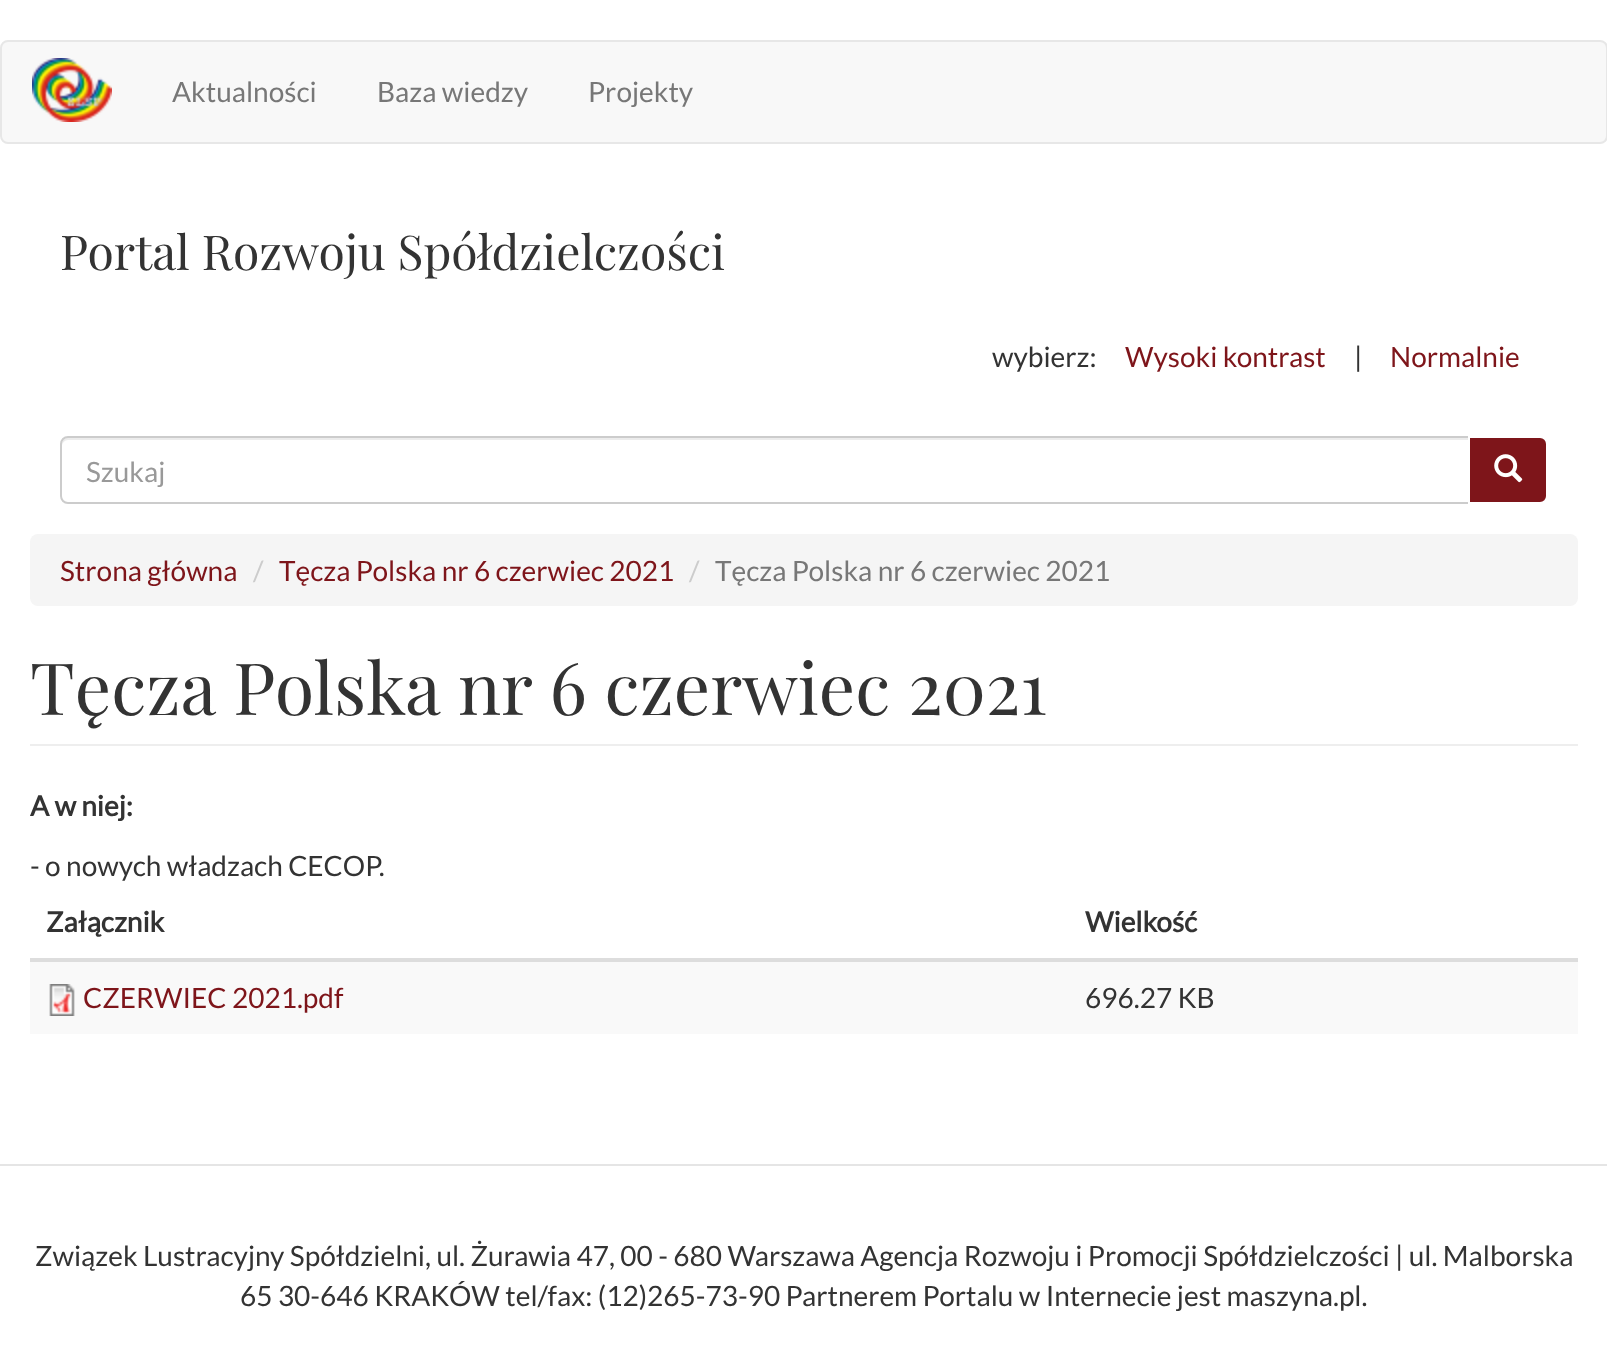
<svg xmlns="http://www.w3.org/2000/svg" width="1607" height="1367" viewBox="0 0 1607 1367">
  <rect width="100%" height="100%" fill="#ffffff"/>
  <rect x="1" y="41" width="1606" height="102" rx="7" fill="#f8f8f8" stroke="#e7e7e7" stroke-width="2"/>
  <image x="32" y="58" width="80" height="64" href="img1.png"/>
  <text x="172" y="102" font-family="Lato" font-size="28" fill="#777777">Aktualności</text>
  <text x="377" y="102" font-family="Lato" font-size="28" fill="#777777">Baza wiedzy</text>
  <text x="588" y="102" font-family="Lato" font-size="28" fill="#777777">Projekty</text>
  <text x="60" y="270" font-family="Playfair Display" font-size="48" fill="#333333">Portal Rozwoju Spółdzielczości</text>
  <text x="992" y="367" font-family="Lato" font-size="28" fill="#333333">wybierz:</text>
  <text x="1125" y="367" font-family="Lato" font-size="28" fill="#7e151a">Wysoki kontrast</text>
  <text x="1354" y="367" font-family="Lato" font-size="28" fill="#333333">|</text>
  <text x="1390" y="367" font-family="Lato" font-size="28" fill="#7e151a">Normalnie</text>
  <path d="M68 440H1468V438H68C63 438 62 442 62 446C62 443 65 440 68 440Z" fill="#ececec"/>
  <path d="M68 437H1469V503H68C64 503 61 500 61 496V444C61 440 64 437 68 437Z" fill="none" stroke="#cccccc" stroke-width="2"/>
  <text x="86" y="482" font-family="Lato" font-size="28" fill="#999999">Szukaj</text>
  <path d="M1469 437H1540C1544 437 1547 440 1547 444V496C1547 500 1544 503 1540 503H1469Z" fill="#7e151a" stroke="#ffffff" stroke-width="2"/>
  <image x="1494" y="454" width="29" height="29" href="img2.png"/>
  <rect x="30" y="534" width="1548" height="72" rx="8" fill="#f5f5f5"/>
  <text x="60" y="581" font-family="Lato" font-size="28" fill="#7e151a">Strona główna</text>
  <text x="253" y="581" font-family="Lato" font-size="28" fill="#cccccc">/</text>
  <text x="279" y="581" font-family="Lato" font-size="28" fill="#7e151a">Tęcza Polska nr 6 czerwiec 2021</text>
  <text x="689" y="581" font-family="Lato" font-size="28" fill="#cccccc">/</text>
  <text x="715" y="581" font-family="Lato" font-size="28" fill="#777777">Tęcza Polska nr 6 czerwiec 2021</text>
  <rect x="30" y="744" width="1548" height="2" fill="#eeeeee"/>
  <text x="30" y="715" font-family="Playfair Display" font-size="72" fill="#333333">Tęcza Polska nr 6 czerwiec 2021</text>
  <text x="30" y="816" font-family="Lato" font-size="28" font-weight="bold" fill="#333333">A w niej:</text>
  <text x="30" y="876" font-family="Lato" font-size="28" fill="#333333">- o nowych władzach CECOP.</text>
  <text x="46" y="932" font-family="Lato" font-size="28" font-weight="bold" fill="#333333">Załącznik</text>
  <rect x="30" y="958" width="1548" height="4" fill="#dddddd"/>
  <text x="1085" y="932" font-family="Lato" font-size="28" font-weight="bold" fill="#333333">Wielkość</text>
  <rect x="30" y="962" width="1548" height="72" fill="#f9f9f9"/>
  <image x="49" y="984" width="26" height="32" href="img3.png"/>
  <text x="83" y="1008" font-family="Lato" font-size="28" fill="#7e151a">CZERWIEC 2021.pdf</text>
  <text x="1085" y="1008" font-family="Lato" font-size="28" fill="#333333">696.27 KB</text>
  <rect x="0" y="1164" width="1607" height="2" fill="#e5e5e5"/>
  <text x="35" y="1266" font-family="Lato" font-size="28" fill="#333333">Związek Lustracyjny Spółdzielni, ul. Żurawia 47, 00 - 680 Warszawa Agencja Rozwoju i Promocji Spółdzielczości | ul. Malborska</text>
  <text x="240" y="1306" font-family="Lato" font-size="28" fill="#333333">65 30-646 KRAKÓW tel/fax: (12)265-73-90 Partnerem Portalu w Internecie jest maszyna.pl.</text>
</svg>
